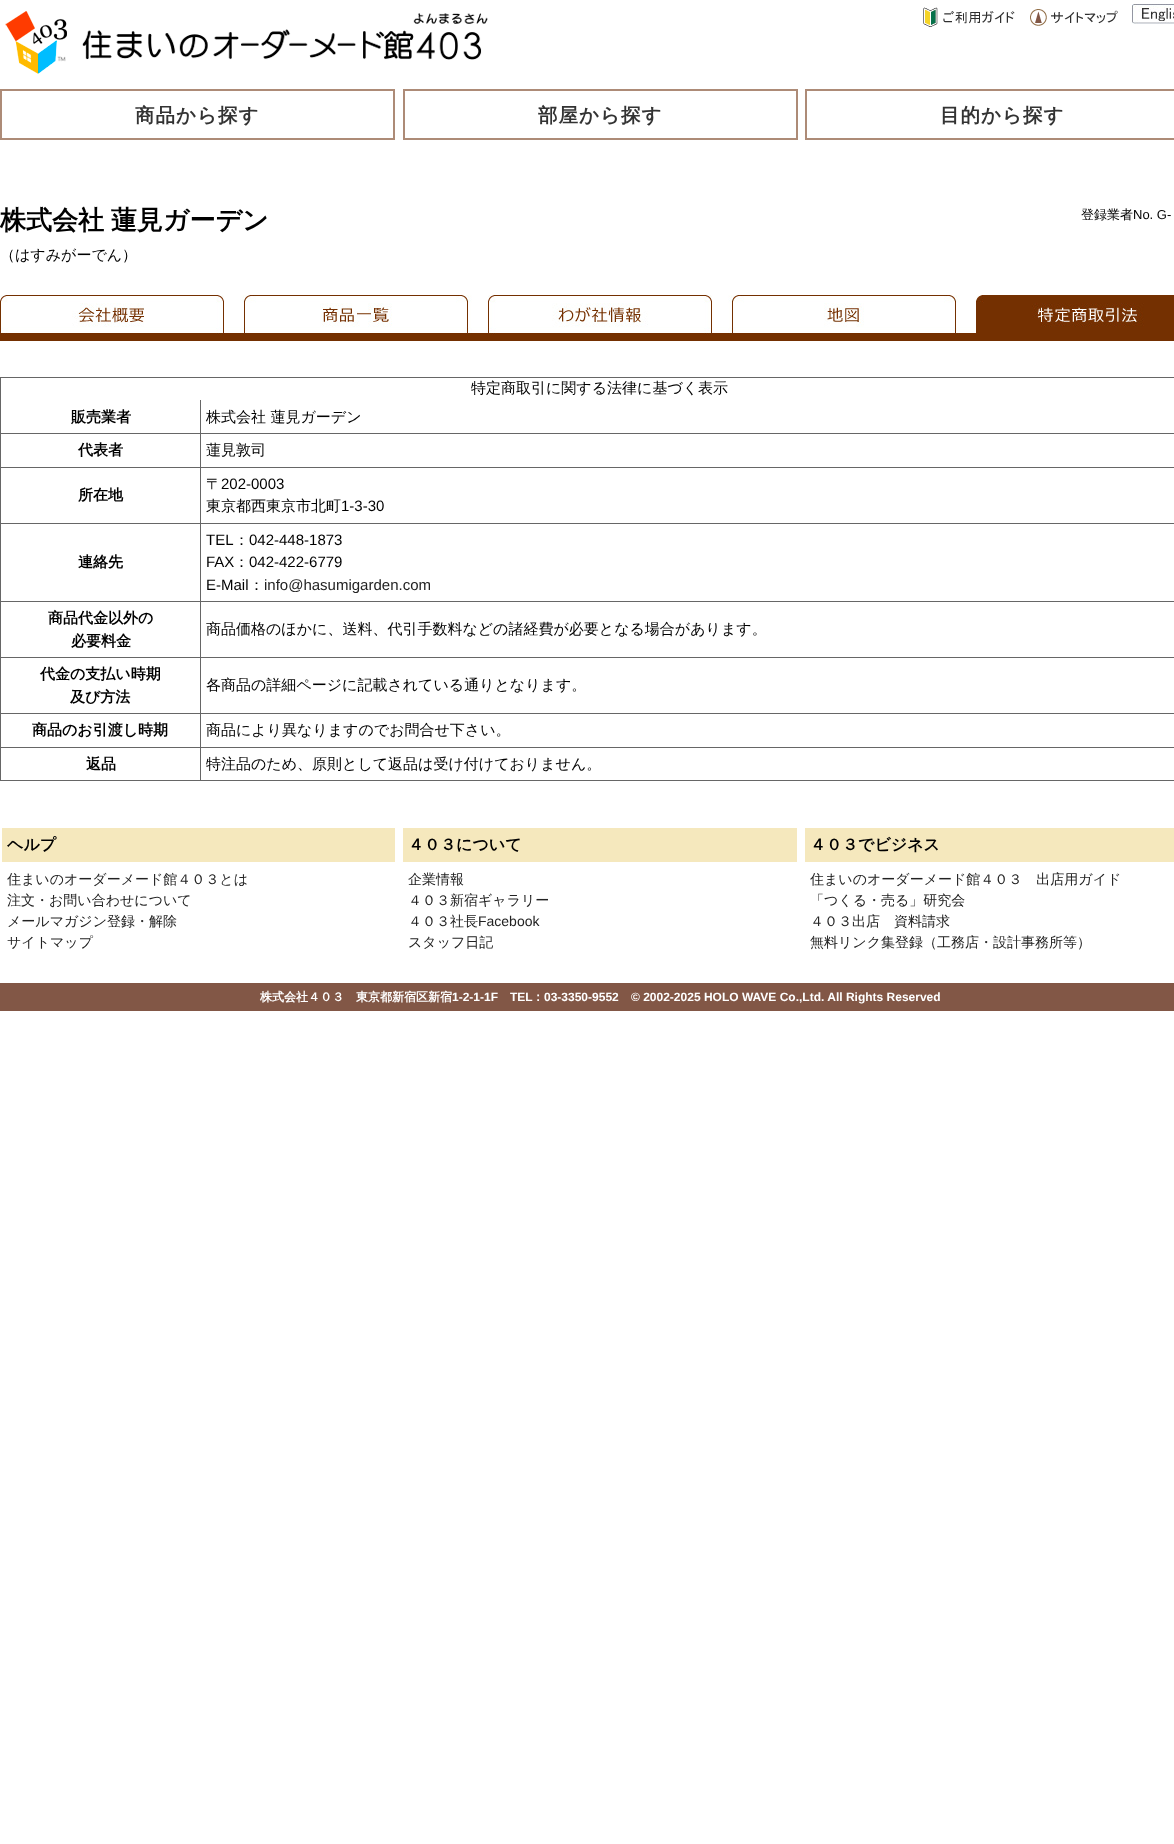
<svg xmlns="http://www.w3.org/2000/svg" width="1174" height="1844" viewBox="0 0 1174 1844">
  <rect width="100%" height="100%" fill="#ffffff"/>
  <image x="5" y="11" width="483" height="63" href="img1.png"/>
  <image x="923" y="7" width="92" height="20" href="img2.png"/>
  <image x="1030" y="9" width="88" height="17" href="img3.png"/>
  <image x="1132" y="4" width="42" height="20" href="img4.png"/>
  <rect x="1" y="90" width="393" height="49" fill="none" stroke="#ad8b77" stroke-width="2"/>
  <text x="135" y="122" font-family="WenQuanYi Zen Hei" font-size="19.5" font-weight="bold" letter-spacing="1" fill="#333333">商品から探す</text>
  <rect x="404" y="90" width="393" height="49" fill="none" stroke="#ad8b77" stroke-width="2"/>
  <text x="538" y="122" font-family="WenQuanYi Zen Hei" font-size="19.5" font-weight="bold" letter-spacing="1" fill="#333333">部屋から探す</text>
  <rect x="806" y="90" width="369" height="49" fill="none" stroke="#ad8b77" stroke-width="2"/>
  <text x="940" y="122" font-family="WenQuanYi Zen Hei" font-size="19.5" font-weight="bold" letter-spacing="1" fill="#333333">目的から探す</text>
  <text x="0" y="229" word-spacing="-1" font-family="WenQuanYi Zen Hei" font-size="26" font-weight="bold" fill="#000000">株式会社 蓮見ガーデン</text>
  <text x="0" y="260" font-family="WenQuanYi Zen Hei" font-size="15" font-weight="500" fill="#000000">（はすみがーでん）</text>
  <text x="1081" y="219" font-family="WenQuanYi Zen Hei" font-size="13" font-weight="500" fill="#000000">登録業者</text>
  <text x="1133" y="219" font-family="Liberation Sans" font-size="13" fill="#000000">No. G-</text>
  <image x="0" y="295" width="240" height="46" href="img5.png"/>
  <image x="240" y="295" width="240" height="46" href="img6.png"/>
  <image x="480" y="295" width="240" height="46" href="img7.png"/>
  <image x="720" y="295" width="240" height="46" href="img8.png"/>
  <image x="960" y="295" width="214" height="46" href="img9.png"/>
  <rect x="0" y="377" width="1174" height="1" fill="#666666"/>
  <rect x="0" y="377" width="1" height="404" fill="#666666"/>
  <text x="471" y="393" font-family="WenQuanYi Zen Hei" font-size="15" font-weight="500" fill="#000000">特定商取引に関する法律に基づく表示</text>
  <rect x="200" y="780" width="974" height="1" fill="#666666"/>
  <rect x="200" y="747" width="1" height="34" fill="#666666"/>
  <rect x="200" y="747" width="974" height="1" fill="#666666"/>
  <rect x="200" y="713" width="1" height="35" fill="#666666"/>
  <rect x="200" y="713" width="974" height="1" fill="#666666"/>
  <rect x="200" y="657" width="1" height="57" fill="#666666"/>
  <rect x="200" y="657" width="974" height="1" fill="#666666"/>
  <rect x="200" y="601" width="1" height="57" fill="#666666"/>
  <rect x="200" y="601" width="974" height="1" fill="#666666"/>
  <rect x="200" y="523" width="1" height="79" fill="#666666"/>
  <rect x="200" y="523" width="974" height="1" fill="#666666"/>
  <rect x="200" y="467" width="1" height="57" fill="#666666"/>
  <rect x="200" y="467" width="974" height="1" fill="#666666"/>
  <rect x="200" y="433" width="1" height="35" fill="#666666"/>
  <rect x="200" y="433" width="974" height="1" fill="#666666"/>
  <rect x="200" y="400" width="1" height="34" fill="#666666"/>
  <rect x="0" y="433" width="201" height="1" fill="#666666"/>
  <text x="71" y="422" font-family="WenQuanYi Zen Hei" font-size="15" font-weight="bold" fill="#000000">販売業者</text>
  <text x="206" y="422" font-family="WenQuanYi Zen Hei" font-size="15" font-weight="500" fill="#000000">株式会社 蓮見ガーデン</text>
  <rect x="0" y="467" width="201" height="1" fill="#666666"/>
  <text x="78" y="455" font-family="WenQuanYi Zen Hei" font-size="15" font-weight="bold" fill="#000000">代表者</text>
  <text x="206" y="455" font-family="WenQuanYi Zen Hei" font-size="15" font-weight="500" fill="#000000">蓮見敦司</text>
  <rect x="0" y="523" width="201" height="1" fill="#666666"/>
  <text x="78" y="500" font-family="WenQuanYi Zen Hei" font-size="15" font-weight="bold" fill="#000000">所在地</text>
  <text x="206" y="489" font-family="WenQuanYi Zen Hei" font-size="15" font-weight="500" fill="#000000">〒</text>
  <text x="221" y="489" font-family="Liberation Sans" font-size="15" fill="#000000">202-0003</text>
  <text x="206" y="511" font-family="WenQuanYi Zen Hei" font-size="15" font-weight="500" fill="#000000">東京都西東京市北町</text>
  <text x="341" y="511" font-family="Liberation Sans" font-size="15" fill="#000000">1-3-30</text>
  <rect x="0" y="601" width="201" height="1" fill="#666666"/>
  <text x="78" y="567" font-family="WenQuanYi Zen Hei" font-size="15" font-weight="bold" fill="#000000">連絡先</text>
  <text x="206" y="545" font-family="Liberation Sans" font-size="15" fill="#000000">TEL</text>
  <text x="234" y="545" font-family="WenQuanYi Zen Hei" font-size="15" font-weight="500" fill="#000000">：</text>
  <text x="249" y="545" font-family="Liberation Sans" font-size="15" fill="#000000">042-448-1873</text>
  <text x="206" y="567" font-family="Liberation Sans" font-size="15" fill="#000000">FAX</text>
  <text x="234" y="567" font-family="WenQuanYi Zen Hei" font-size="15" font-weight="500" fill="#000000">：</text>
  <text x="249" y="567" font-family="Liberation Sans" font-size="15" fill="#000000">042-422-6779</text>
  <text x="206" y="590" font-family="Liberation Sans" font-size="15" fill="#000000">E-Mail</text>
  <text x="249" y="590" font-family="WenQuanYi Zen Hei" font-size="15" font-weight="500" fill="#000000">：</text>
  <text x="264" y="590" font-family="Liberation Sans" font-size="15" fill="#222222">info@hasumigarden.com</text>
  <rect x="0" y="657" width="201" height="1" fill="#666666"/>
  <text x="48" y="623" font-family="WenQuanYi Zen Hei" font-size="15" font-weight="bold" fill="#000000">商品代金以外の</text>
  <text x="71" y="646" font-family="WenQuanYi Zen Hei" font-size="15" font-weight="bold" fill="#000000">必要料金</text>
  <text x="206" y="634" font-family="WenQuanYi Zen Hei" font-size="15" font-weight="500" fill="#000000">商品価格のほかに、送料、代引手数料などの諸経費が必要となる場合があります。</text>
  <rect x="0" y="713" width="201" height="1" fill="#666666"/>
  <text x="40" y="679" font-family="WenQuanYi Zen Hei" font-size="15" font-weight="bold" fill="#000000">代金の支払い時期</text>
  <text x="70" y="702" font-family="WenQuanYi Zen Hei" font-size="15" font-weight="bold" fill="#000000">及び方法</text>
  <text x="206" y="690" font-family="WenQuanYi Zen Hei" font-size="15" font-weight="500" fill="#000000">各商品の詳細ページに記載されている通りとなります。</text>
  <rect x="0" y="747" width="201" height="1" fill="#666666"/>
  <text x="32" y="735" font-family="WenQuanYi Zen Hei" font-size="15" font-weight="bold" fill="#000000">商品のお引渡し時期</text>
  <text x="206" y="735" font-family="WenQuanYi Zen Hei" font-size="15" font-weight="500" fill="#000000">商品により異なりますのでお問合せ下さい。</text>
  <rect x="0" y="780" width="201" height="1" fill="#666666"/>
  <text x="86" y="769" font-family="WenQuanYi Zen Hei" font-size="15" font-weight="bold" fill="#000000">返品</text>
  <text x="206" y="769" font-family="WenQuanYi Zen Hei" font-size="15" font-weight="500" fill="#000000">特注品のため、原則として返品は受け付けておりません。</text>
  <rect x="2" y="828" width="393" height="34" fill="#f5e8bd"/>
  <text x="7" y="850" font-family="WenQuanYi Zen Hei" font-size="16" font-weight="bold" fill="#000000">ヘルプ</text>
  <rect x="403" y="828" width="394" height="34" fill="#f5e8bd"/>
  <text x="408" y="850" font-family="WenQuanYi Zen Hei" font-size="16" font-weight="bold" fill="#000000">４０３について</text>
  <rect x="805" y="828" width="369" height="34" fill="#f5e8bd"/>
  <text x="810" y="850" font-family="WenQuanYi Zen Hei" font-size="16" font-weight="bold" fill="#000000">４０３でビジネス</text>
  <text x="7" y="884" font-family="WenQuanYi Zen Hei" font-size="14" font-weight="500" fill="#222222">住まいのオーダーメード館４０３とは</text>
  <text x="7" y="905" font-family="WenQuanYi Zen Hei" font-size="14" font-weight="500" fill="#222222">注文・お問い合わせについて</text>
  <text x="7" y="926" font-family="WenQuanYi Zen Hei" font-size="14" font-weight="500" fill="#222222">メールマガジン登録・解除</text>
  <text x="7" y="947" font-family="WenQuanYi Zen Hei" font-size="14" font-weight="500" fill="#222222">サイトマップ</text>
  <text x="408" y="884" font-family="WenQuanYi Zen Hei" font-size="14" font-weight="500" fill="#222222">企業情報</text>
  <text x="408" y="905" font-family="WenQuanYi Zen Hei" font-size="14" font-weight="500" fill="#222222">４０３新宿ギャラリー</text>
  <text x="408" y="926" font-family="WenQuanYi Zen Hei" font-size="14" font-weight="500" fill="#222222">４０３社長</text>
  <text x="478" y="926" font-family="Liberation Sans" font-size="14" fill="#222222">Facebook</text>
  <text x="408" y="947" font-family="WenQuanYi Zen Hei" font-size="14" font-weight="500" fill="#222222">スタッフ日記</text>
  <text x="810" y="884" font-family="WenQuanYi Zen Hei" font-size="14" font-weight="500" fill="#222222">住まいのオーダーメード館４０３　出店用ガイド</text>
  <text x="810" y="905" font-family="WenQuanYi Zen Hei" font-size="14" font-weight="500" fill="#222222">「つくる・売る」研究会</text>
  <text x="810" y="926" font-family="WenQuanYi Zen Hei" font-size="14" font-weight="500" fill="#222222">４０３出店　資料請求</text>
  <text x="810" y="947" font-family="WenQuanYi Zen Hei" font-size="14" font-weight="500" fill="#222222">無料リンク集登録（工務店・設計事務所等）</text>
  <rect x="0" y="983" width="1174" height="28" fill="#825746"/>
  <text x="260" y="1001" font-family="WenQuanYi Zen Hei" font-size="12" font-weight="bold" fill="#ffffff">株式会社４０３　東京都新宿区新宿</text>
  <text x="452" y="1001" font-family="Liberation Sans" font-size="12" font-weight="bold" fill="#ffffff">1-2-1-1F</text>
  <text x="510" y="1001" font-family="Liberation Sans" font-size="12" font-weight="bold" fill="#ffffff">TEL</text>
  <text x="532" y="1001" font-family="WenQuanYi Zen Hei" font-size="12" font-weight="bold" fill="#ffffff">：</text>
  <text x="544" y="1001" font-family="Liberation Sans" font-size="12" font-weight="bold" fill="#ffffff">03-3350-9552</text>
  <text x="631" y="1001" font-family="Liberation Sans" font-size="12" font-weight="bold" fill="#ffffff">© 2002-2025 HOLO WAVE Co.,Ltd. All Rights Reserved</text>
</svg>
